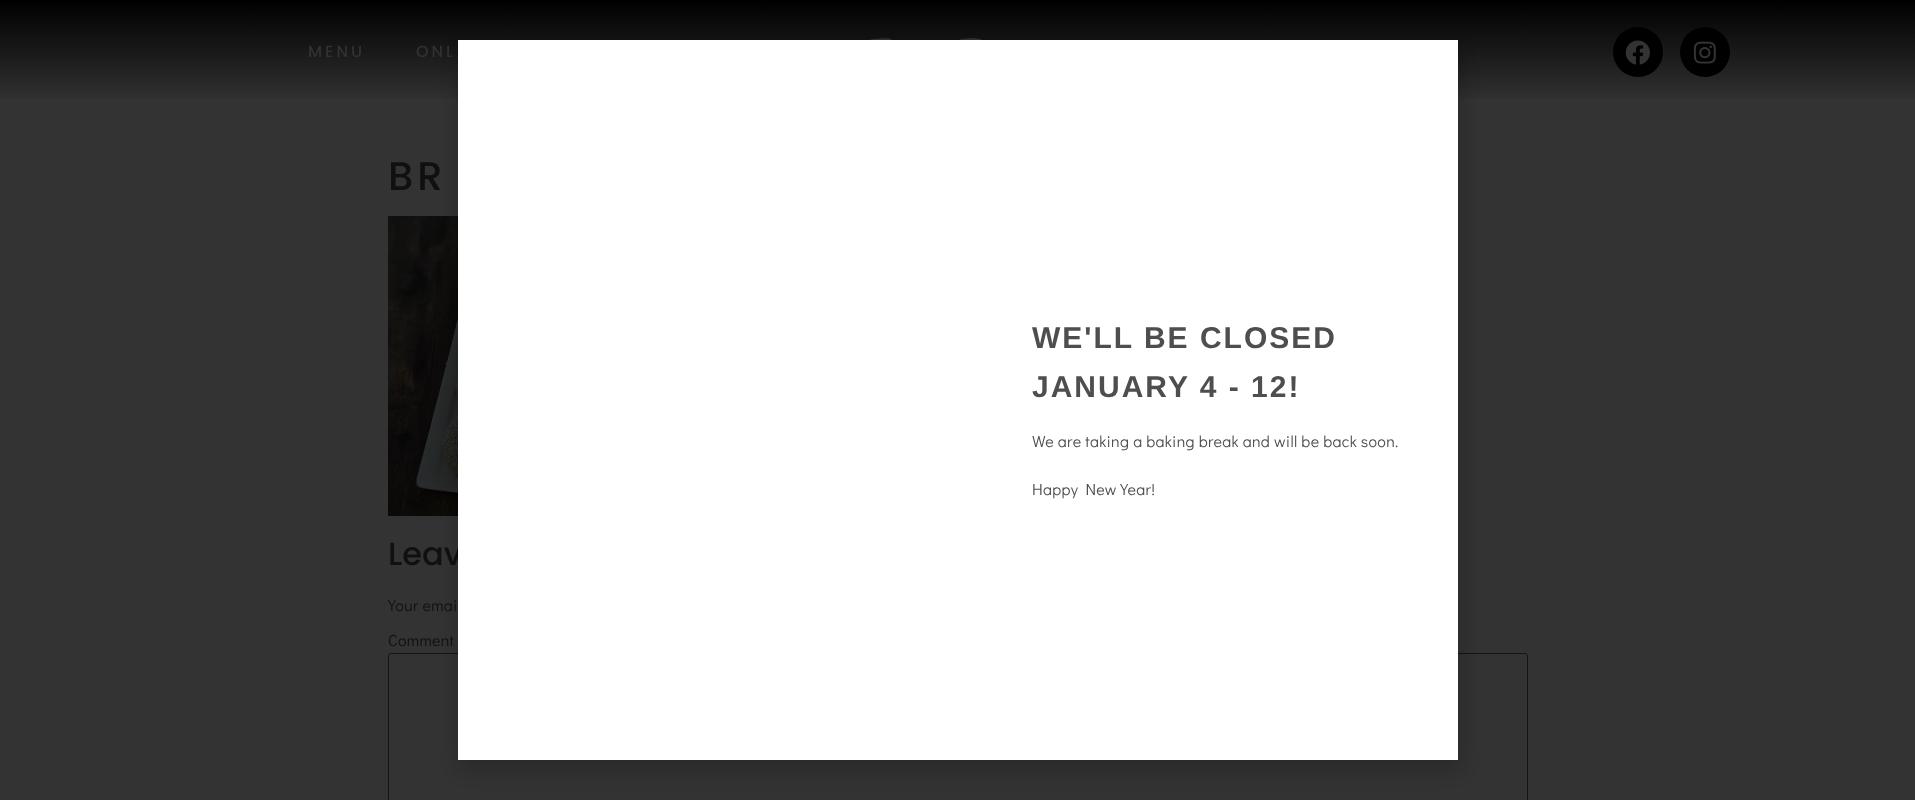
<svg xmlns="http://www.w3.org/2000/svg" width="1915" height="800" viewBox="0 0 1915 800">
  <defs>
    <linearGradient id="g1" gradientUnits="userSpaceOnUse" x1="958" y1="0" x2="958" y2="104"><stop offset="0" stop-color="#000000"/><stop offset="1" stop-color="#333333"/></linearGradient>
    <filter id="blur1" x="-50%" y="-200%" width="200%" height="500%"><feGaussianBlur stdDeviation="11.5"/></filter>
  </defs>
  <rect width="100%" height="100%" fill="#333333"/>
  <rect x="0" y="0" width="1915" height="99" fill="url(#g1)"/>
  <image x="866" y="38" width="117" height="2" href="img1.png"/>
  <circle cx="1638" cy="52" r="25" fill="#000000"/>
  <image x="1625" y="40" width="25" height="25" href="img2.png"/>
  <circle cx="1705" cy="52" r="25" fill="#000000"/>
  <image x="1693" y="41" width="23" height="23" href="img3.png"/>
  <text x="308" y="57" font-family="Poppins" font-size="16" font-weight="500" letter-spacing="3" fill="#313132">MENU</text>
  <text x="416" y="57" font-family="Poppins" font-size="16" font-weight="500" letter-spacing="3" fill="#313132">ONL</text>
  <text x="388" y="190" font-family="Poppins" font-size="40" font-weight="500" letter-spacing="4" fill="#101010">BR</text>
  <image x="388" y="216" width="70" height="300" href="img4.png"/>
  <text x="388" y="565" font-family="Poppins" font-size="32" font-weight="500" fill="#101010">Leav</text>
  <text x="388" y="611" font-family="Didact Gothic" font-size="16" letter-spacing="0.3" fill="#101010">Your emai</text>
  <text x="388" y="646" font-family="Didact Gothic" font-size="16" letter-spacing="0.3" fill="#101010">Comment</text>
  <rect x="388.5" y="653.5" width="1139" height="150" rx="2.5" fill="none" stroke="#141414"/>
  <rect x="457" y="45" width="1006" height="726" fill="#000000" fill-opacity="0.2" filter="url(#blur1)"/>
  <rect x="458" y="40" width="1000" height="720" fill="#ffffff"/>
  <text x="1032" y="348" font-family="Liberation Sans" font-size="30" font-weight="bold" letter-spacing="2" fill="#4e4e4e">WE'LL BE CLOSED</text>
  <text x="1032" y="397" font-family="Liberation Sans" font-size="30" font-weight="bold" letter-spacing="2" fill="#4e4e4e">JANUARY 4 - 12!</text>
  <text x="1032" y="447" font-family="Didact Gothic" font-size="16" letter-spacing="0.3" fill="#4e4e4e">We are taking a baking break and will be back soon.</text>
  <text x="1032" y="495" font-family="Didact Gothic" font-size="16" letter-spacing="0.3" fill="#4e4e4e">Happy New Year!</text>
</svg>
